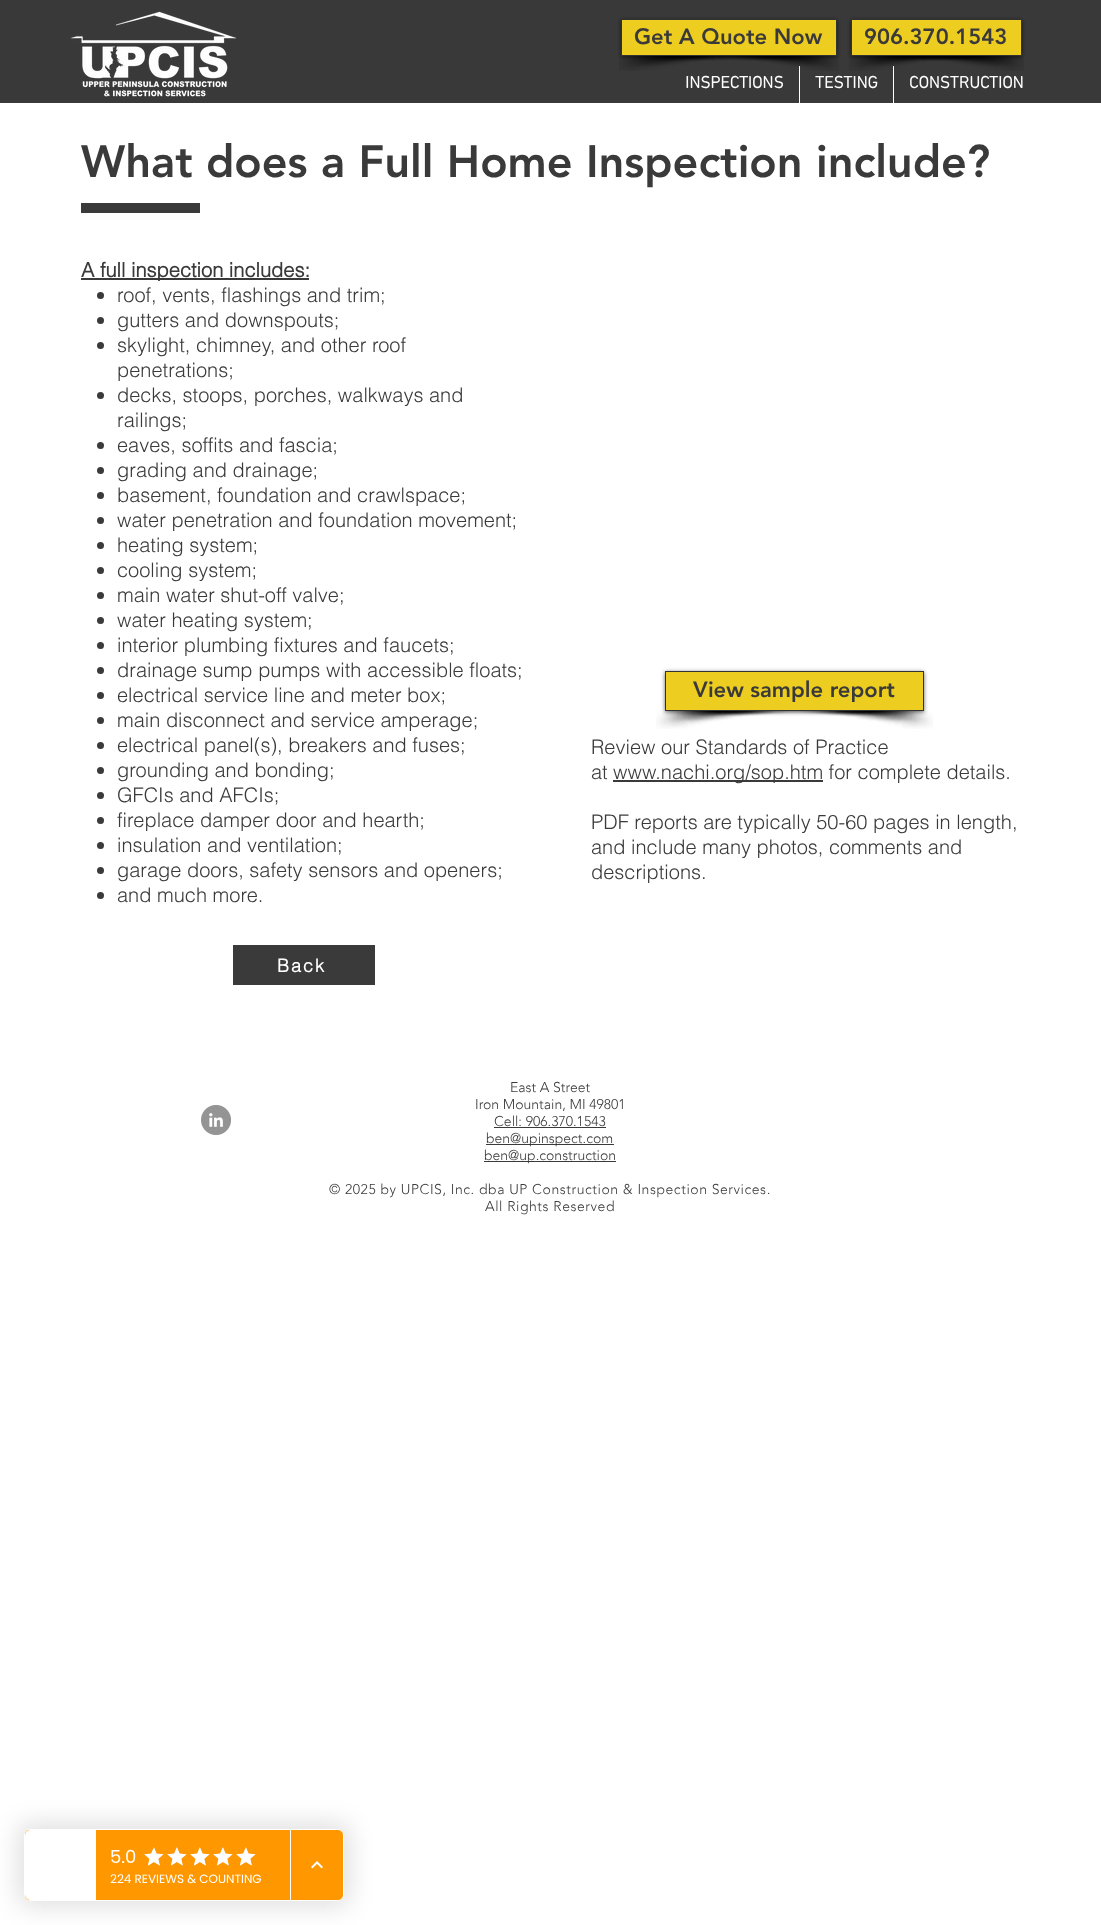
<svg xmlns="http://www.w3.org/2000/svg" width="1101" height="1925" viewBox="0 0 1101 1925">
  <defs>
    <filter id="blur1" x="-50%" y="-200%" width="200%" height="500%"><feGaussianBlur stdDeviation="2"/></filter>
    <filter id="blur2" x="-50%" y="-200%" width="200%" height="500%"><feGaussianBlur stdDeviation="12"/></filter>
  </defs>
  <rect width="100%" height="100%" fill="#ffffff"/>
  <rect x="0" y="0" width="1101" height="103" fill="#393939"/>
  <image x="70" y="11" width="167" height="86" href="img1.png"/>
  <image x="619" y="56" width="130" height="15" href="img2.png"/>
  <rect x="799" y="66" width="1" height="37" fill="#ffffff"/>
  <image x="718" y="56" width="121" height="15" href="img3.png"/>
  <rect x="621" y="20" width="216" height="37" fill="#000000" fill-opacity="0.6" filter="url(#blur1)"/>
  <rect x="621.5" y="19.5" width="215" height="36" fill="#edcd1f" stroke="#323232"/>
  <text x="634" y="44" font-family="'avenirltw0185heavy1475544'" font-size="22" font-weight="900" fill="#3b3a3a">Get A Quote Now</text>
  <rect x="893" y="66" width="1" height="37" fill="#ffffff"/>
  <image x="849" y="56" width="130" height="15" href="img4.png"/>
  <image x="921" y="56" width="103" height="15" href="img5.png"/>
  <rect x="851" y="20" width="171" height="37" fill="#000000" fill-opacity="0.6" filter="url(#blur1)"/>
  <rect x="851.5" y="19.5" width="170" height="36" fill="#edcd1f" stroke="#323232"/>
  <text x="864" y="44" font-family="'avenirltw0185heavy1475544'" font-size="22" font-weight="900" fill="#3b3a3a">906.370.1543</text>
  <text x="685" y="88" font-family="'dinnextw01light'" font-size="17" font-weight="bold" fill="#ffffff">INSPECTIONS</text>
  <text x="815" y="88" font-family="'dinnextw01light'" font-size="17" font-weight="bold" fill="#ffffff">TESTING</text>
  <text x="909" y="88" font-family="'dinnextw01light'" font-size="17" font-weight="bold" fill="#ffffff">CONSTRUCTION</text>
  <text x="81" y="177" font-family="'avenirltw0185heavy1475544'" font-size="45" font-weight="900" fill="#3b3a3a">What does a Full Home Inspection include?</text>
  <rect x="81" y="203" width="119" height="10" fill="#3b3a3a"/>
  <rect x="81" y="278" width="228" height="2" fill="#3b3a3a"/>
  <text x="81" y="277" font-family="helvetica" font-size="20" font-weight="bold" fill="#3b3a3a">A full inspection includes:</text>
  <circle cx="100.5" cy="295.5" r="3.5" fill="#3b3a3a"/>
  <text x="117" y="302" font-family="helvetica" font-size="20" font-weight="300" fill="#3b3a3a">roof, vents, flashings and trim;</text>
  <circle cx="100.5" cy="320.5" r="3.5" fill="#3b3a3a"/>
  <text x="117" y="327" font-family="helvetica" font-size="20" font-weight="300" fill="#3b3a3a">gutters and downspouts;</text>
  <circle cx="100.5" cy="345.5" r="3.5" fill="#3b3a3a"/>
  <text x="117" y="352" font-family="helvetica" font-size="20" font-weight="300" fill="#3b3a3a">skylight, chimney, and other roof</text>
  <text x="117" y="377" font-family="helvetica" font-size="20" font-weight="300" fill="#3b3a3a">penetrations;</text>
  <circle cx="100.5" cy="395.5" r="3.5" fill="#3b3a3a"/>
  <text x="117" y="402" font-family="helvetica" font-size="20" font-weight="300" fill="#3b3a3a">decks, stoops, porches, walkways and</text>
  <text x="117" y="427" font-family="helvetica" font-size="20" font-weight="300" fill="#3b3a3a">railings;</text>
  <circle cx="100.5" cy="445.5" r="3.5" fill="#3b3a3a"/>
  <text x="117" y="452" font-family="helvetica" font-size="20" font-weight="300" fill="#3b3a3a">eaves, soffits and fascia;</text>
  <circle cx="100.5" cy="470.5" r="3.5" fill="#3b3a3a"/>
  <text x="117" y="477" font-family="helvetica" font-size="20" font-weight="300" fill="#3b3a3a">grading and drainage;</text>
  <circle cx="100.5" cy="495.5" r="3.5" fill="#3b3a3a"/>
  <text x="117" y="502" font-family="helvetica" font-size="20" font-weight="300" fill="#3b3a3a">basement, foundation and crawlspace;</text>
  <circle cx="100.5" cy="520.5" r="3.5" fill="#3b3a3a"/>
  <text x="117" y="527" font-family="helvetica" font-size="20" font-weight="300" fill="#3b3a3a">water penetration and foundation movement;</text>
  <circle cx="100.5" cy="545.5" r="3.5" fill="#3b3a3a"/>
  <text x="117" y="552" font-family="helvetica" font-size="20" font-weight="300" fill="#3b3a3a">heating system;</text>
  <circle cx="100.5" cy="570.5" r="3.5" fill="#3b3a3a"/>
  <text x="117" y="577" font-family="helvetica" font-size="20" font-weight="300" fill="#3b3a3a">cooling system;</text>
  <circle cx="100.5" cy="595.5" r="3.5" fill="#3b3a3a"/>
  <text x="117" y="602" font-family="helvetica" font-size="20" font-weight="300" fill="#3b3a3a">main water shut-off valve;</text>
  <circle cx="100.5" cy="620.5" r="3.5" fill="#3b3a3a"/>
  <text x="117" y="627" font-family="helvetica" font-size="20" font-weight="300" fill="#3b3a3a">water heating system;</text>
  <circle cx="100.5" cy="645.5" r="3.5" fill="#3b3a3a"/>
  <text x="117" y="652" font-family="helvetica" font-size="20" font-weight="300" fill="#3b3a3a">interior plumbing fixtures and faucets;</text>
  <circle cx="100.5" cy="670.5" r="3.5" fill="#3b3a3a"/>
  <text x="117" y="677" font-family="helvetica" font-size="20" font-weight="300" fill="#3b3a3a">drainage sump pumps with accessible floats;</text>
  <circle cx="100.5" cy="695.5" r="3.5" fill="#3b3a3a"/>
  <text x="117" y="702" font-family="helvetica" font-size="20" font-weight="300" fill="#3b3a3a">electrical service line and meter box;</text>
  <circle cx="100.5" cy="720.5" r="3.5" fill="#3b3a3a"/>
  <text x="117" y="727" font-family="helvetica" font-size="20" font-weight="300" fill="#3b3a3a">main disconnect and service amperage;</text>
  <circle cx="100.5" cy="745.5" r="3.5" fill="#3b3a3a"/>
  <text x="117" y="752" font-family="helvetica" font-size="20" font-weight="300" fill="#3b3a3a">electrical panel(s), breakers and fuses;</text>
  <circle cx="100.5" cy="770.5" r="3.5" fill="#3b3a3a"/>
  <text x="117" y="777" font-family="helvetica" font-size="20" font-weight="300" fill="#3b3a3a">grounding and bonding;</text>
  <circle cx="100.5" cy="795.5" r="3.5" fill="#3b3a3a"/>
  <text x="117" y="802" font-family="helvetica" font-size="20" font-weight="300" fill="#3b3a3a">GFCIs and AFCIs;</text>
  <circle cx="100.5" cy="820.5" r="3.5" fill="#3b3a3a"/>
  <text x="117" y="827" font-family="helvetica" font-size="20" font-weight="300" fill="#3b3a3a">fireplace damper door and hearth;</text>
  <circle cx="100.5" cy="845.5" r="3.5" fill="#3b3a3a"/>
  <text x="117" y="852" font-family="helvetica" font-size="20" font-weight="300" fill="#3b3a3a">insulation and ventilation;</text>
  <circle cx="100.5" cy="870.5" r="3.5" fill="#3b3a3a"/>
  <text x="117" y="877" font-family="helvetica" font-size="20" font-weight="300" fill="#3b3a3a">garage doors, safety sensors and openers;</text>
  <circle cx="100.5" cy="895.5" r="3.5" fill="#3b3a3a"/>
  <text x="117" y="902" font-family="helvetica" font-size="20" font-weight="300" fill="#3b3a3a">and much more.</text>
  <image x="656" y="711" width="154" height="18" href="img6.png"/>
  <image x="779" y="711" width="154" height="18" href="img7.png"/>
  <rect x="665" y="672" width="259" height="40" fill="#000000" fill-opacity="0.6" filter="url(#blur1)"/>
  <rect x="665.5" y="671.5" width="258" height="39" fill="#edcd1f" stroke="#323232"/>
  <text x="693" y="697" font-family="'avenirltw0185heavy1475544'" font-size="22" font-weight="900" fill="#3b3a3a">View sample report</text>
  <text x="591" y="754" font-family="helvetica" font-size="20" font-weight="300" fill="#3b3a3a">Review our Standards of Practice</text>
  <text x="591" y="779" font-family="helvetica" font-size="20" font-weight="300" fill="#3b3a3a">at</text>
  <rect x="613" y="780" width="210" height="2" fill="#3b3a3a"/>
  <text x="613" y="779" font-family="helvetica" font-size="20" font-weight="300" fill="#3b3a3a">www.nachi.org/sop.htm for complete details.</text>
  <text x="591" y="829" font-family="helvetica" font-size="20" font-weight="300" fill="#3b3a3a">PDF reports are typically 50-60 pages in length,</text>
  <text x="591" y="854" font-family="helvetica" font-size="20" font-weight="300" fill="#3b3a3a">and include many photos, comments and</text>
  <text x="591" y="879" font-family="helvetica" font-size="20" font-weight="300" fill="#3b3a3a">descriptions.</text>
  <rect x="233" y="945" width="142" height="40" fill="#3b3a3a"/>
  <text x="277" y="972" font-family="helvetica" font-size="18" font-weight="bold" letter-spacing="2" fill="#ffffff">Back</text>
  <image x="201" y="1105" width="30" height="30" href="img8.png"/>
  <text x="510" y="1092" font-family="'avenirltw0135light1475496'" font-size="14" font-weight="300" fill="#3b3a3a">East A Street</text>
  <text x="475" y="1109" font-family="'avenirltw0135light1475496'" font-size="14" font-weight="300" fill="#3b3a3a">Iron Mountain, MI 49801</text>
  <text x="494" y="1126" font-family="'avenirltw0135light1475496'" font-size="14" font-weight="300" fill="#3b3a3a">Cell: 906.370.1543</text>
  <rect x="494" y="1127" width="112" height="1" fill="#3b3a3a"/>
  <rect x="486" y="1144" width="128" height="1" fill="#3b3a3a"/>
  <text x="486" y="1143" font-family="'avenirltw0135light1475496'" font-size="14" font-weight="300" fill="#3b3a3a">ben@upinspect.com</text>
  <rect x="484" y="1161" width="132" height="1" fill="#3b3a3a"/>
  <text x="484" y="1160" font-family="'avenirltw0135light1475496'" font-size="14" font-weight="300" fill="#3b3a3a">ben@up.construction</text>
  <text x="329" y="1194" font-family="'avenirltw0135light1475496'" font-size="14" font-weight="300" letter-spacing="0.55" fill="#3b3a3a">© 2025 by UPCIS, Inc. dba UP Construction &amp; Inspection Services.</text>
  <text x="485" y="1211" font-family="'avenirltw0135light1475496'" font-size="14" font-weight="300" letter-spacing="0.55" fill="#3b3a3a">All Rights Reserved</text>
  <rect x="18" y="1823" width="332" height="84" rx="12" fill="#000000" fill-opacity="0.12" filter="url(#blur2)"/>
  <rect x="24.5" y="1829.5" width="319" height="71" rx="5.5" fill="#ff9700" stroke="#ffffff"/>
  <path d="M31 1830H96V1900H31C27.5 1900 25 1897.5 25 1894V1836C25 1832.5 27.5 1830 31 1830Z" fill="#ffffff"/>
  <rect x="290" y="1830" width="1" height="70" fill="#ffffff"/>
  <text x="110" y="1863" font-family="Poppins" font-size="18" fill="#ffffff">5.0</text>
  <image x="144" y="1847" width="20" height="19" href="img9.png"/>
  <image x="144" y="1847" width="20" height="19" href="img10.png"/>
  <image x="167" y="1847" width="20" height="19" href="img9.png"/>
  <image x="167" y="1847" width="20" height="19" href="img10.png"/>
  <image x="190" y="1847" width="20" height="19" href="img9.png"/>
  <image x="190" y="1847" width="20" height="19" href="img10.png"/>
  <image x="213" y="1847" width="20" height="19" href="img9.png"/>
  <image x="213" y="1847" width="20" height="19" href="img10.png"/>
  <image x="236" y="1847" width="20" height="19" href="img9.png"/>
  <image x="236" y="1847" width="20" height="19" href="img10.png"/>
  <text x="110" y="1883" font-family="Poppins" font-size="12" fill="#ffffff">224 REVIEWS &amp; COUNTING</text>
  <image x="311" y="1861" width="12" height="8" href="img11.png"/>
</svg>
